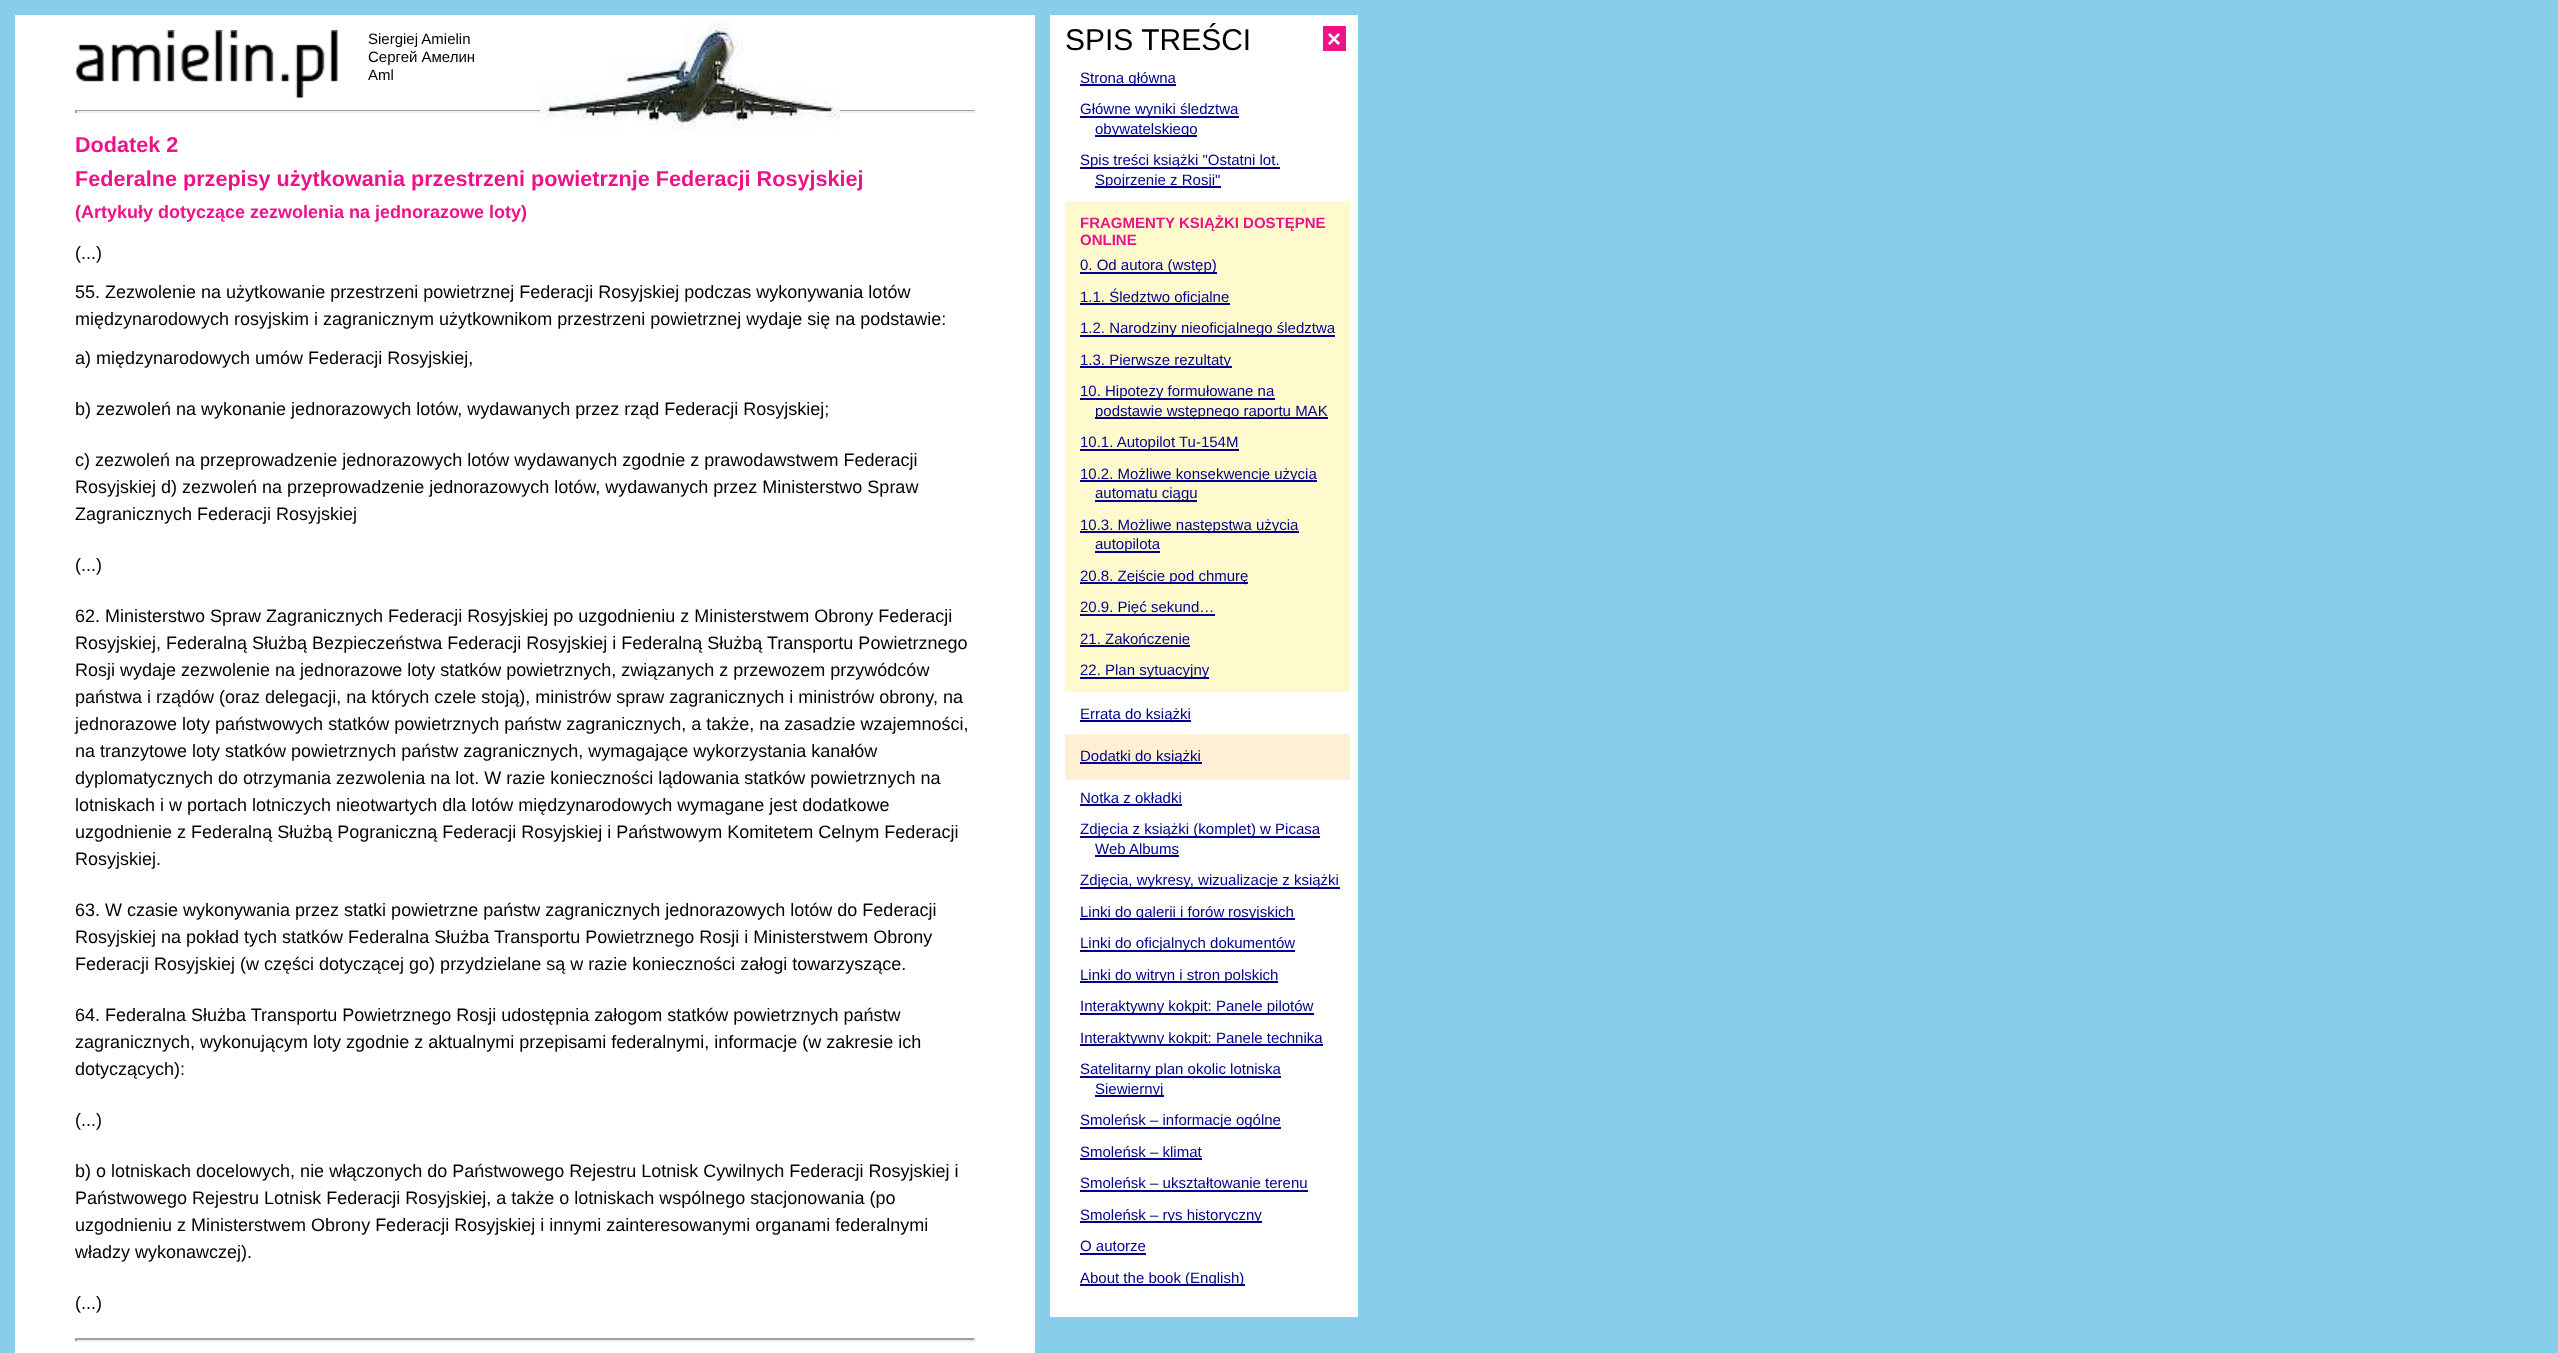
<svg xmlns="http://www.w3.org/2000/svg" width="2558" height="1353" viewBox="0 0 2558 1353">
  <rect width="100%" height="100%" fill="#87ceeb"/>
  <rect x="15" y="15" width="1020" height="1338" fill="#ffffff"/>
  <rect x="75" y="110" width="900" height="1" fill="#9f9f9f"/>
  <rect x="974" y="110" width="2" height="3" fill="#eeeeee"/>
  <rect x="75" y="111" width="900" height="2" fill="#eeeeee"/>
  <image x="540" y="22" width="300" height="109" href="img1.png"/>
  <image x="75" y="30" width="263" height="69" href="img2.png"/>
  <text x="368" y="44" font-family="Liberation Sans" font-size="15" fill="#000000">Siergiej Amielin</text>
  <text x="368" y="62" font-family="Liberation Sans" font-size="15" fill="#000000">Сергей Амелин</text>
  <text x="368" y="80" font-family="Liberation Sans" font-size="15" fill="#000000">Aml</text>
  <rect x="75" y="110" width="2" height="3" fill="#9f9f9f"/>
  <text x="75" y="152" font-family="Liberation Sans" font-size="21.6" font-weight="bold" fill="#ee1289">Dodatek 2</text>
  <text x="75" y="186" font-family="Liberation Sans" font-size="21.6" font-weight="bold" fill="#ee1289">Federalne przepisy użytkowania przestrzeni powietrznje Federacji Rosyjskiej</text>
  <text x="75" y="218" font-family="Liberation Sans" font-size="18" font-weight="bold" fill="#ee1289">(Artykuły dotyczące zezwolenia na jednorazowe loty)</text>
  <text x="75" y="259" font-family="Liberation Sans" font-size="18" fill="#000000">(...)</text>
  <text x="75" y="298" font-family="Liberation Sans" font-size="18" fill="#000000">55. Zezwolenie na użytkowanie przestrzeni powietrznej Federacji Rosyjskiej podczas wykonywania lotów</text>
  <text x="75" y="325" font-family="Liberation Sans" font-size="18" fill="#000000">międzynarodowych rosyjskim i zagranicznym użytkownikom przestrzeni powietrznej wydaje się na podstawie:</text>
  <text x="75" y="364" font-family="Liberation Sans" font-size="18" fill="#000000">a) międzynarodowych umów Federacji Rosyjskiej,</text>
  <text x="75" y="415" font-family="Liberation Sans" font-size="18" fill="#000000">b) zezwoleń na wykonanie jednorazowych lotów, wydawanych przez rząd Federacji Rosyjskiej;</text>
  <text x="75" y="466" font-family="Liberation Sans" font-size="18" fill="#000000">c) zezwoleń na przeprowadzenie jednorazowych lotów wydawanych zgodnie z prawodawstwem Federacji</text>
  <text x="75" y="493" font-family="Liberation Sans" font-size="18" fill="#000000">Rosyjskiej d) zezwoleń na przeprowadzenie jednorazowych lotów, wydawanych przez Ministerstwo Spraw</text>
  <text x="75" y="520" font-family="Liberation Sans" font-size="18" fill="#000000">Zagranicznych Federacji Rosyjskiej</text>
  <text x="75" y="571" font-family="Liberation Sans" font-size="18" fill="#000000">(...)</text>
  <text x="75" y="622" font-family="Liberation Sans" font-size="18" fill="#000000">62. Ministerstwo Spraw Zagranicznych Federacji Rosyjskiej po uzgodnieniu z Ministerstwem Obrony Federacji</text>
  <text x="75" y="649" font-family="Liberation Sans" font-size="18" fill="#000000">Rosyjskiej, Federalną Służbą Bezpieczeństwa Federacji Rosyjskiej i Federalną Służbą Transportu Powietrznego</text>
  <text x="75" y="676" font-family="Liberation Sans" font-size="18" fill="#000000">Rosji wydaje zezwolenie na jednorazowe loty statków powietrznych, związanych z przewozem przywódców</text>
  <text x="75" y="703" font-family="Liberation Sans" font-size="18" fill="#000000">państwa i rządów (oraz delegacji, na których czele stoją), ministrów spraw zagranicznych i ministrów obrony, na</text>
  <text x="75" y="730" font-family="Liberation Sans" font-size="18" fill="#000000">jednorazowe loty państwowych statków powietrznych państw zagranicznych, a także, na zasadzie wzajemności,</text>
  <text x="75" y="757" font-family="Liberation Sans" font-size="18" fill="#000000">na tranzytowe loty statków powietrznych państw zagranicznych, wymagające wykorzystania kanałów</text>
  <text x="75" y="784" font-family="Liberation Sans" font-size="18" fill="#000000">dyplomatycznych do otrzymania zezwolenia na lot. W razie konieczności lądowania statków powietrznych na</text>
  <text x="75" y="811" font-family="Liberation Sans" font-size="18" fill="#000000">lotniskach i w portach lotniczych nieotwartych dla lotów międzynarodowych wymagane jest dodatkowe</text>
  <text x="75" y="838" font-family="Liberation Sans" font-size="18" fill="#000000">uzgodnienie z Federalną Służbą Pograniczną Federacji Rosyjskiej i Państwowym Komitetem Celnym Federacji</text>
  <text x="75" y="865" font-family="Liberation Sans" font-size="18" fill="#000000">Rosyjskiej.</text>
  <text x="75" y="916" font-family="Liberation Sans" font-size="18" fill="#000000">63. W czasie wykonywania przez statki powietrzne państw zagranicznych jednorazowych lotów do Federacji</text>
  <text x="75" y="943" font-family="Liberation Sans" font-size="18" fill="#000000">Rosyjskiej na pokład tych statków Federalna Służba Transportu Powietrznego Rosji i Ministerstwem Obrony</text>
  <text x="75" y="970" font-family="Liberation Sans" font-size="18" fill="#000000">Federacji Rosyjskiej (w części dotyczącej go) przydzielane są w razie konieczności załogi towarzyszące.</text>
  <text x="75" y="1021" font-family="Liberation Sans" font-size="18" fill="#000000">64. Federalna Służba Transportu Powietrznego Rosji udostępnia załogom statków powietrznych państw</text>
  <text x="75" y="1048" font-family="Liberation Sans" font-size="18" fill="#000000">zagranicznych, wykonującym loty zgodnie z aktualnymi przepisami federalnymi, informacje (w zakresie ich</text>
  <text x="75" y="1075" font-family="Liberation Sans" font-size="18" fill="#000000">dotyczących):</text>
  <text x="75" y="1126" font-family="Liberation Sans" font-size="18" fill="#000000">(...)</text>
  <text x="75" y="1177" font-family="Liberation Sans" font-size="18" fill="#000000">b) o lotniskach docelowych, nie włączonych do Państwowego Rejestru Lotnisk Cywilnych Federacji Rosyjskiej i</text>
  <text x="75" y="1204" font-family="Liberation Sans" font-size="18" fill="#000000">Państwowego Rejestru Lotnisk Federacji Rosyjskiej, a także o lotniskach wspólnego stacjonowania (po</text>
  <text x="75" y="1231" font-family="Liberation Sans" font-size="18" fill="#000000">uzgodnieniu z Ministerstwem Obrony Federacji Rosyjskiej i innymi zainteresowanymi organami federalnymi</text>
  <text x="75" y="1258" font-family="Liberation Sans" font-size="18" fill="#000000">władzy wykonawczej).</text>
  <text x="75" y="1309" font-family="Liberation Sans" font-size="18" fill="#000000">(...)</text>
  <rect x="75" y="1338" width="900" height="2" fill="#9f9f9f"/>
  <rect x="974" y="1338" width="2" height="3" fill="#eeeeee"/>
  <rect x="75" y="1340" width="900" height="2" fill="#eeeeee"/>
  <rect x="75" y="1338" width="2" height="3" fill="#9f9f9f"/>
  <rect x="1050" y="15" width="308" height="1302" fill="#ffffff"/>
  <text x="1065" y="50" font-family="Liberation Sans" font-size="30" fill="#000000">SPIS TREŚCI</text>
  <rect x="1323" y="26" width="23" height="25" fill="#ee1289"/>
  <text x="1327" y="47" font-family="Liberation Sans" font-size="24" font-weight="bold" fill="#ffffff">×</text>
  <rect x="1080" y="84" width="96" height="2" fill="#00008b"/>
  <text x="1080" y="83" font-family="Liberation Sans" font-size="15" fill="#00008b">Strona główna</text>
  <rect x="1080" y="116" width="159" height="2" fill="#00008b"/>
  <text x="1080" y="114" font-family="Liberation Sans" font-size="15" fill="#00008b">Główne wyniki śledztwa</text>
  <rect x="1095" y="135" width="102" height="2" fill="#00008b"/>
  <text x="1095" y="134" font-family="Liberation Sans" font-size="15" fill="#00008b">obywatelskiego</text>
  <rect x="1080" y="167" width="200" height="2" fill="#00008b"/>
  <text x="1080" y="165" font-family="Liberation Sans" font-size="15" fill="#00008b">Spis treści książki "Ostatni lot.</text>
  <rect x="1095" y="186" width="126" height="2" fill="#00008b"/>
  <text x="1095" y="185" font-family="Liberation Sans" font-size="15" fill="#00008b">Spojrzenie z Rosji"</text>
  <rect x="1065" y="201" width="285" height="491" fill="#fffacd"/>
  <text x="1080" y="228" font-family="Liberation Sans" font-size="15" font-weight="bold" fill="#ee1289">FRAGMENTY KSIĄŻKI DOSTĘPNE</text>
  <text x="1080" y="245" font-family="Liberation Sans" font-size="15" font-weight="bold" fill="#ee1289">ONLINE</text>
  <rect x="1080" y="272" width="137" height="2" fill="#00008b"/>
  <text x="1080" y="270" font-family="Liberation Sans" font-size="15" fill="#00008b">0. Od autora (wstęp)</text>
  <rect x="1080" y="303" width="150" height="2" fill="#00008b"/>
  <text x="1080" y="302" font-family="Liberation Sans" font-size="15" fill="#00008b">1.1. Śledztwo oficjalne</text>
  <rect x="1080" y="335" width="255" height="2" fill="#00008b"/>
  <text x="1080" y="333" font-family="Liberation Sans" font-size="15" fill="#00008b">1.2. Narodziny nieoficjalnego śledztwa</text>
  <rect x="1080" y="366" width="152" height="2" fill="#00008b"/>
  <text x="1080" y="365" font-family="Liberation Sans" font-size="15" fill="#00008b">1.3. Pierwsze rezultaty</text>
  <rect x="1080" y="398" width="195" height="2" fill="#00008b"/>
  <text x="1080" y="396" font-family="Liberation Sans" font-size="15" fill="#00008b">10. Hipotezy formułowane na</text>
  <rect x="1095" y="417" width="233" height="2" fill="#00008b"/>
  <text x="1095" y="416" font-family="Liberation Sans" font-size="15" fill="#00008b">podstawie wstępnego raportu MAK</text>
  <rect x="1080" y="449" width="159" height="2" fill="#00008b"/>
  <text x="1080" y="447" font-family="Liberation Sans" font-size="15" fill="#00008b">10.1. Autopilot Tu-154M</text>
  <rect x="1080" y="480" width="237" height="2" fill="#00008b"/>
  <text x="1080" y="479" font-family="Liberation Sans" font-size="15" fill="#00008b">10.2. Możliwe konsekwencje użycia</text>
  <rect x="1095" y="500" width="102" height="2" fill="#00008b"/>
  <text x="1095" y="498" font-family="Liberation Sans" font-size="15" fill="#00008b">automatu ciągu</text>
  <rect x="1080" y="531" width="219" height="2" fill="#00008b"/>
  <text x="1080" y="530" font-family="Liberation Sans" font-size="15" fill="#00008b">10.3. Możliwe następstwa użycia</text>
  <rect x="1095" y="551" width="65" height="2" fill="#00008b"/>
  <text x="1095" y="549" font-family="Liberation Sans" font-size="15" fill="#00008b">autopilota</text>
  <rect x="1080" y="582" width="168" height="2" fill="#00008b"/>
  <text x="1080" y="581" font-family="Liberation Sans" font-size="15" fill="#00008b">20.8. Zejście pod chmurę</text>
  <rect x="1080" y="614" width="135" height="2" fill="#00008b"/>
  <text x="1080" y="612" font-family="Liberation Sans" font-size="15" fill="#00008b">20.9. Pięć sekund…</text>
  <text x="1080" y="644" font-family="Liberation Sans" font-size="15" fill="#00008b">21. Zakończenie</text>
  <rect x="1080" y="645" width="110" height="2" fill="#00008b"/>
  <rect x="1080" y="677" width="129" height="2" fill="#00008b"/>
  <text x="1080" y="675" font-family="Liberation Sans" font-size="15" fill="#00008b">22. Plan sytuacyjny</text>
  <rect x="1080" y="720" width="111" height="2" fill="#00008b"/>
  <text x="1080" y="719" font-family="Liberation Sans" font-size="15" fill="#00008b">Errata do książki</text>
  <rect x="1065" y="734" width="285" height="46" fill="#ffefd5"/>
  <rect x="1080" y="762" width="122" height="2" fill="#00008b"/>
  <text x="1080" y="761" font-family="Liberation Sans" font-size="15" fill="#00008b">Dodatki do książki</text>
  <text x="1080" y="803" font-family="Liberation Sans" font-size="15" fill="#00008b">Notka z okładki</text>
  <rect x="1080" y="804" width="102" height="2" fill="#00008b"/>
  <rect x="1080" y="836" width="240" height="2" fill="#00008b"/>
  <text x="1080" y="834" font-family="Liberation Sans" font-size="15" fill="#00008b">Zdjęcia z książki (komplet) w Picasa</text>
  <text x="1095" y="854" font-family="Liberation Sans" font-size="15" fill="#00008b">Web Albums</text>
  <rect x="1095" y="855" width="84" height="2" fill="#00008b"/>
  <rect x="1080" y="887" width="260" height="2" fill="#00008b"/>
  <text x="1080" y="885" font-family="Liberation Sans" font-size="15" fill="#00008b">Zdjęcia, wykresy, wizualizacje z książki</text>
  <rect x="1080" y="918" width="144" height="2" fill="#00008b"/>
  <text x="1080" y="917" font-family="Liberation Sans" font-size="15" fill="#00008b">Linki do galerii i forów</text>
  <rect x="1224" y="918" width="71" height="2" fill="#00008b"/>
  <text x="1228" y="917" font-family="Liberation Sans" font-size="15" fill="#00008b">rosyjskich</text>
  <rect x="1080" y="950" width="215" height="2" fill="#00008b"/>
  <text x="1080" y="948" font-family="Liberation Sans" font-size="15" fill="#00008b">Linki do oficjalnych dokumentów</text>
  <rect x="1080" y="981" width="198" height="2" fill="#00008b"/>
  <text x="1080" y="980" font-family="Liberation Sans" font-size="15" fill="#00008b">Linki do witryn i stron polskich</text>
  <rect x="1080" y="1013" width="234" height="2" fill="#00008b"/>
  <text x="1080" y="1011" font-family="Liberation Sans" font-size="15" fill="#00008b">Interaktywny kokpit: Panele pilotów</text>
  <rect x="1080" y="1044" width="243" height="2" fill="#00008b"/>
  <text x="1080" y="1043" font-family="Liberation Sans" font-size="15" fill="#00008b">Interaktywny kokpit: Panele technika</text>
  <rect x="1080" y="1076" width="201" height="2" fill="#00008b"/>
  <text x="1080" y="1074" font-family="Liberation Sans" font-size="15" fill="#00008b">Satelitarny plan okolic lotniska</text>
  <rect x="1095" y="1095" width="69" height="2" fill="#00008b"/>
  <text x="1095" y="1094" font-family="Liberation Sans" font-size="15" fill="#00008b">Siewiernyj</text>
  <rect x="1080" y="1127" width="201" height="2" fill="#00008b"/>
  <text x="1080" y="1125" font-family="Liberation Sans" font-size="15" fill="#00008b">Smoleńsk – informacje ogólne</text>
  <text x="1080" y="1157" font-family="Liberation Sans" font-size="15" fill="#00008b">Smoleńsk – klimat</text>
  <rect x="1080" y="1158" width="122" height="2" fill="#00008b"/>
  <text x="1080" y="1188" font-family="Liberation Sans" font-size="15" fill="#00008b">Smoleńsk – ukształtowanie terenu</text>
  <rect x="1080" y="1190" width="228" height="2" fill="#00008b"/>
  <rect x="1080" y="1221" width="182" height="2" fill="#00008b"/>
  <text x="1080" y="1220" font-family="Liberation Sans" font-size="15" fill="#00008b">Smoleńsk – rys historyczny</text>
  <text x="1080" y="1251" font-family="Liberation Sans" font-size="15" fill="#00008b">O autorze</text>
  <rect x="1080" y="1253" width="66" height="2" fill="#00008b"/>
  <rect x="1080" y="1284" width="165" height="2" fill="#00008b"/>
  <text x="1080" y="1283" font-family="Liberation Sans" font-size="15" fill="#00008b">About the book (English)</text>
</svg>
